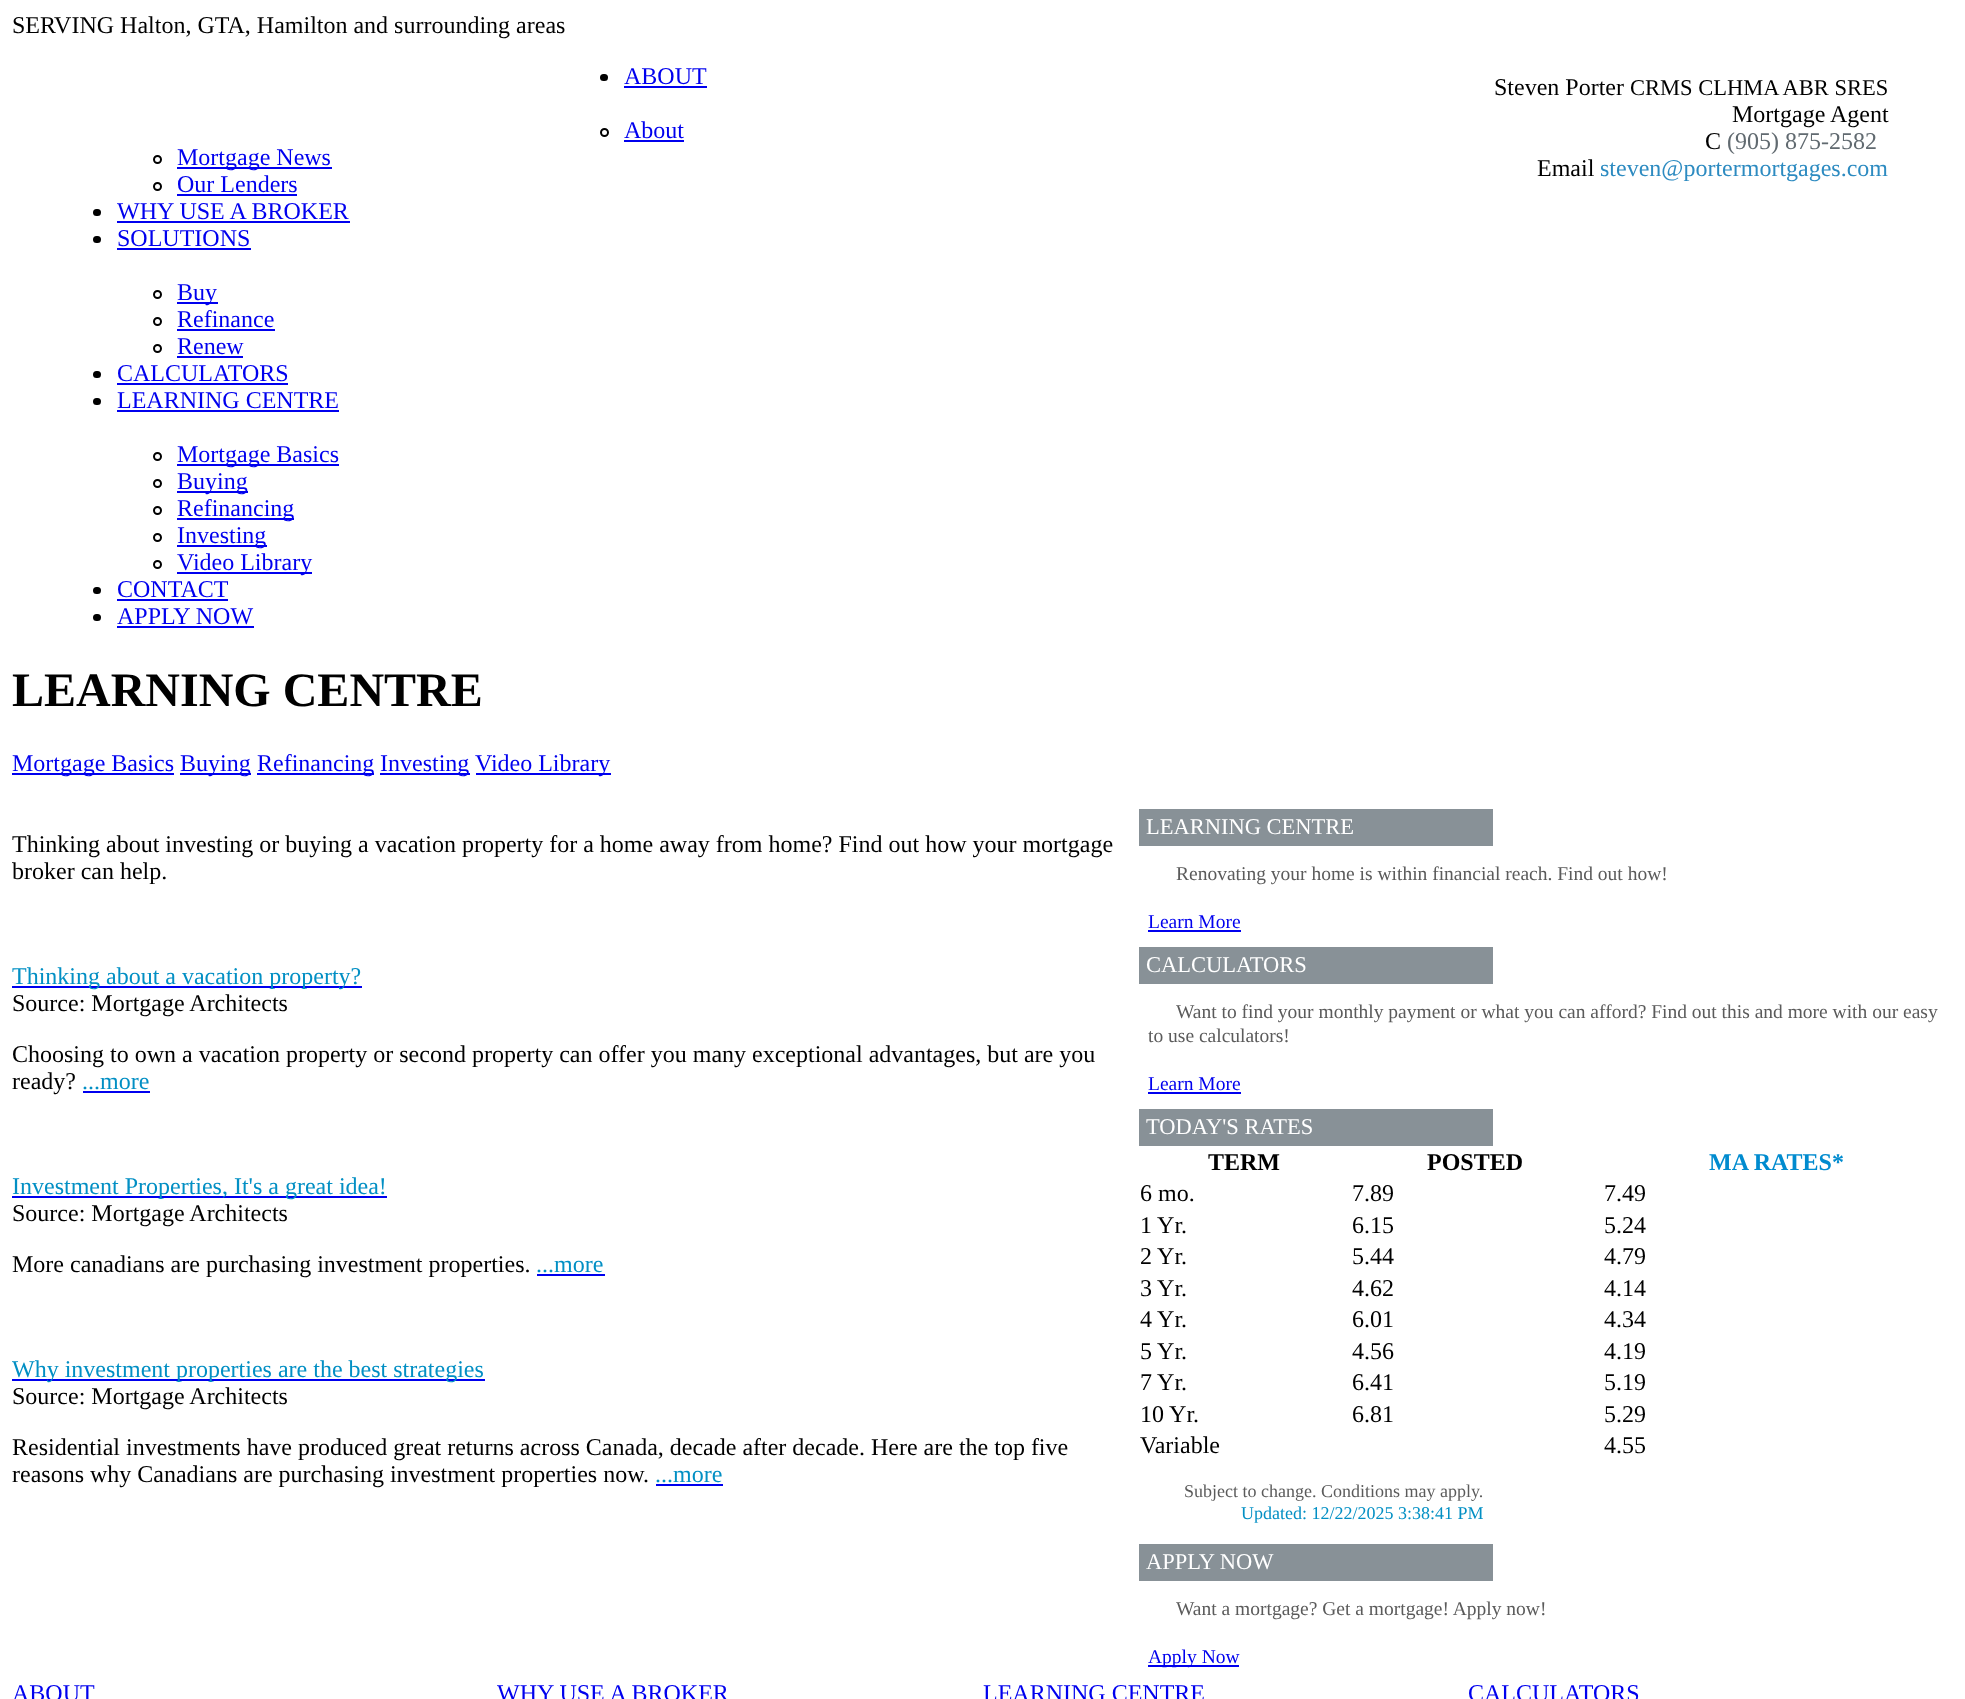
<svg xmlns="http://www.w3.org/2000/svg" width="1965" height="1699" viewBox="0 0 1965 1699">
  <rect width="100%" height="100%" fill="#ffffff"/>
  <text x="12" y="33" font-family="Liberation Serif" font-size="24" fill="#000000">SERVING Halton, GTA, Hamilton and surrounding areas</text>
  <rect x="600" y="74" width="8" height="7" rx="3.5" fill="#000000"/>
  <text x="624" y="84" font-family="Liberation Serif" font-size="24" fill="#0000ee">ABOUT</text>
  <rect x="624" y="86" width="83" height="2" fill="#0000ee"/>
  <circle cx="604.5" cy="132.5" r="3.5" fill="none" stroke="#000000" stroke-width="2"/>
  <text x="624" y="138" font-family="Liberation Serif" font-size="24" fill="#0000ee">About</text>
  <rect x="624" y="140" width="60" height="2" fill="#0000ee"/>
  <circle cx="157.5" cy="159.5" r="3.5" fill="none" stroke="#000000" stroke-width="2"/>
  <rect x="177" y="167" width="155" height="2" fill="#0000ee"/>
  <text x="177" y="165" font-family="Liberation Serif" font-size="24" fill="#0000ee">Mortgage News</text>
  <circle cx="157.5" cy="186.5" r="3.5" fill="none" stroke="#000000" stroke-width="2"/>
  <text x="177" y="192" font-family="Liberation Serif" font-size="24" fill="#0000ee">Our Lenders</text>
  <rect x="177" y="194" width="120" height="2" fill="#0000ee"/>
  <rect x="93" y="209" width="8" height="7" rx="3.5" fill="#000000"/>
  <text x="117" y="219" font-family="Liberation Serif" font-size="24" fill="#0000ee">WHY USE A BROKER</text>
  <rect x="117" y="221" width="233" height="2" fill="#0000ee"/>
  <rect x="93" y="236" width="8" height="7" rx="3.5" fill="#000000"/>
  <text x="117" y="246" font-family="Liberation Serif" font-size="24" fill="#0000ee">SOLUTIONS</text>
  <rect x="117" y="248" width="134" height="2" fill="#0000ee"/>
  <circle cx="157.5" cy="294.5" r="3.5" fill="none" stroke="#000000" stroke-width="2"/>
  <rect x="177" y="302" width="41" height="2" fill="#0000ee"/>
  <text x="177" y="300" font-family="Liberation Serif" font-size="24" fill="#0000ee">Buy</text>
  <circle cx="157.5" cy="321.5" r="3.5" fill="none" stroke="#000000" stroke-width="2"/>
  <text x="177" y="327" font-family="Liberation Serif" font-size="24" fill="#0000ee">Refinance</text>
  <rect x="177" y="329" width="98" height="2" fill="#0000ee"/>
  <circle cx="157.5" cy="348.5" r="3.5" fill="none" stroke="#000000" stroke-width="2"/>
  <text x="177" y="354" font-family="Liberation Serif" font-size="24" fill="#0000ee">Renew</text>
  <rect x="177" y="356" width="66" height="2" fill="#0000ee"/>
  <rect x="93" y="371" width="8" height="7" rx="3.5" fill="#000000"/>
  <text x="117" y="381" font-family="Liberation Serif" font-size="24" fill="#0000ee">CALCULATORS</text>
  <rect x="117" y="383" width="171" height="2" fill="#0000ee"/>
  <rect x="93" y="398" width="8" height="7" rx="3.5" fill="#000000"/>
  <text x="117" y="408" font-family="Liberation Serif" font-size="24" fill="#0000ee">LEARNING CENTRE</text>
  <rect x="117" y="410" width="222" height="2" fill="#0000ee"/>
  <circle cx="157.5" cy="456.5" r="3.5" fill="none" stroke="#000000" stroke-width="2"/>
  <rect x="177" y="464" width="162" height="2" fill="#0000ee"/>
  <text x="177" y="462" font-family="Liberation Serif" font-size="24" fill="#0000ee">Mortgage Basics</text>
  <circle cx="157.5" cy="483.5" r="3.5" fill="none" stroke="#000000" stroke-width="2"/>
  <rect x="177" y="491" width="71" height="2" fill="#0000ee"/>
  <text x="177" y="489" font-family="Liberation Serif" font-size="24" fill="#0000ee">Buying</text>
  <circle cx="157.5" cy="510.5" r="3.5" fill="none" stroke="#000000" stroke-width="2"/>
  <rect x="177" y="518" width="117" height="2" fill="#0000ee"/>
  <text x="177" y="516" font-family="Liberation Serif" font-size="24" fill="#0000ee">Refinancing</text>
  <circle cx="157.5" cy="537.5" r="3.5" fill="none" stroke="#000000" stroke-width="2"/>
  <rect x="177" y="545" width="90" height="2" fill="#0000ee"/>
  <text x="177" y="543" font-family="Liberation Serif" font-size="24" fill="#0000ee">Investing</text>
  <circle cx="157.5" cy="564.5" r="3.5" fill="none" stroke="#000000" stroke-width="2"/>
  <rect x="177" y="572" width="135" height="2" fill="#0000ee"/>
  <text x="177" y="570" font-family="Liberation Serif" font-size="24" fill="#0000ee">Video Library</text>
  <rect x="93" y="587" width="8" height="7" rx="3.5" fill="#000000"/>
  <text x="117" y="597" font-family="Liberation Serif" font-size="24" fill="#0000ee">CONTACT</text>
  <rect x="117" y="599" width="111" height="2" fill="#0000ee"/>
  <rect x="93" y="614" width="8" height="7" rx="3.5" fill="#000000"/>
  <text x="117" y="624" font-family="Liberation Serif" font-size="24" fill="#0000ee">APPLY NOW</text>
  <rect x="117" y="626" width="137" height="2" fill="#0000ee"/>
  <text x="1494" y="95" font-family="Liberation Serif" font-size="24" fill="#000000">Steven Porter</text>
  <text x="1630" y="95" font-family="Liberation Serif" font-size="22.5" fill="#000000">CRMS CLHMA ABR SRES</text>
  <text x="1732" y="122" font-family="Liberation Serif" font-size="24" fill="#000000">Mortgage Agent</text>
  <text x="1705" y="149" font-family="Liberation Serif" font-size="24" fill="#000000">C</text>
  <text x="1727" y="149" font-family="Liberation Serif" font-size="24" fill="#616a70">(905) 875-2582</text>
  <text x="1537" y="176" font-family="Liberation Serif" font-size="24" fill="#000000">Email</text>
  <text x="1600" y="176" font-family="Liberation Serif" font-size="24" fill="#2d8bc1">steven@portermortgages.com</text>
  <text x="12" y="706" font-family="Liberation Serif" font-size="48" font-weight="bold" fill="#000000">LEARNING CENTRE</text>
  <rect x="12" y="773" width="162" height="2" fill="#0000ee"/>
  <text x="12" y="771" font-family="Liberation Serif" font-size="24" fill="#0000ee">Mortgage Basics</text>
  <rect x="180" y="773" width="71" height="2" fill="#0000ee"/>
  <text x="180" y="771" font-family="Liberation Serif" font-size="24" fill="#0000ee">Buying</text>
  <rect x="257" y="773" width="117" height="2" fill="#0000ee"/>
  <text x="257" y="771" font-family="Liberation Serif" font-size="24" fill="#0000ee">Refinancing</text>
  <rect x="380" y="773" width="90" height="2" fill="#0000ee"/>
  <text x="380" y="771" font-family="Liberation Serif" font-size="24" fill="#0000ee">Investing</text>
  <rect x="476" y="773" width="135" height="2" fill="#0000ee"/>
  <text x="475" y="771" font-family="Liberation Serif" font-size="24" fill="#0000ee">Video Library</text>
  <text x="12" y="852" font-family="Liberation Serif" font-size="24" fill="#000000">Thinking about investing or buying a vacation property for a home away from home? Find out how your mortgage</text>
  <text x="12" y="879" font-family="Liberation Serif" font-size="24" fill="#000000">broker can help.</text>
  <rect x="12" y="986" width="350" height="2" fill="#0000ee"/>
  <text x="12" y="984" font-family="Liberation Serif" font-size="24" fill="#028fc4">Thinking about a vacation property?</text>
  <text x="12" y="1011" font-family="Liberation Serif" font-size="24" fill="#000000">Source: Mortgage Architects</text>
  <text x="12" y="1062" font-family="Liberation Serif" font-size="24" fill="#000000">Choosing to own a vacation property or second property can offer you many exceptional advantages, but are you</text>
  <text x="12" y="1089" font-family="Liberation Serif" font-size="24" fill="#000000">ready?</text>
  <text x="82" y="1089" font-family="Liberation Serif" font-size="24" fill="#028fc4">...more</text>
  <rect x="83" y="1091" width="67" height="2" fill="#0000ee"/>
  <rect x="12" y="1196" width="375" height="2" fill="#0000ee"/>
  <text x="12" y="1194" font-family="Liberation Serif" font-size="24" fill="#028fc4">Investment Properties, It's a great idea!</text>
  <text x="12" y="1221" font-family="Liberation Serif" font-size="24" fill="#000000">Source: Mortgage Architects</text>
  <text x="12" y="1272" font-family="Liberation Serif" font-size="24" fill="#000000">More canadians are purchasing investment properties.</text>
  <text x="536" y="1272" font-family="Liberation Serif" font-size="24" fill="#028fc4">...more</text>
  <rect x="537" y="1274" width="68" height="2" fill="#0000ee"/>
  <rect x="12" y="1379" width="473" height="2" fill="#0000ee"/>
  <text x="12" y="1377" font-family="Liberation Serif" font-size="24" fill="#028fc4">Why investment properties are the best strategies</text>
  <text x="12" y="1404" font-family="Liberation Serif" font-size="24" fill="#000000">Source: Mortgage Architects</text>
  <text x="12" y="1455" font-family="Liberation Serif" font-size="24" fill="#000000">Residential investments have produced great returns across Canada, decade after decade. Here are the top five</text>
  <text x="12" y="1482" font-family="Liberation Serif" font-size="24" fill="#000000">reasons why Canadians are purchasing investment properties now.</text>
  <text x="655" y="1482" font-family="Liberation Serif" font-size="24" fill="#028fc4">...more</text>
  <rect x="656" y="1484" width="67" height="2" fill="#0000ee"/>
  <rect x="1139" y="809" width="354" height="37" fill="#889197"/>
  <text x="1146" y="834" font-family="Liberation Serif" font-size="22.5" fill="#ffffff">LEARNING CENTRE</text>
  <text x="1176" y="880" font-family="Liberation Serif" font-size="19.5" fill="#5b5b5b">Renovating your home is within financial reach. Find out how!</text>
  <text x="1148" y="928" font-family="Liberation Serif" font-size="19.5" fill="#0000ee">Learn More</text>
  <rect x="1148" y="930" width="93" height="2" fill="#0000ee"/>
  <rect x="1139" y="947" width="354" height="37" fill="#889197"/>
  <text x="1146" y="972" font-family="Liberation Serif" font-size="22.5" fill="#ffffff">CALCULATORS</text>
  <text x="1176" y="1018" font-family="Liberation Serif" font-size="19.5" fill="#5b5b5b">Want to find your monthly payment or what you can afford? Find out this and more with our easy</text>
  <text x="1148" y="1042" font-family="Liberation Serif" font-size="19.5" fill="#5b5b5b">to use calculators!</text>
  <text x="1148" y="1090" font-family="Liberation Serif" font-size="19.5" fill="#0000ee">Learn More</text>
  <rect x="1148" y="1092" width="93" height="2" fill="#0000ee"/>
  <rect x="1139" y="1109" width="354" height="37" fill="#889197"/>
  <text x="1146" y="1134" font-family="Liberation Serif" font-size="22.5" fill="#ffffff">TODAY'S RATES</text>
  <text x="1208" y="1170" font-family="Liberation Serif" font-size="24" font-weight="bold" fill="#000000">TERM</text>
  <text x="1427" y="1170" font-family="Liberation Serif" font-size="24" font-weight="bold" fill="#000000">POSTED</text>
  <text x="1709" y="1170" font-family="Liberation Serif" font-size="24" font-weight="bold" fill="#008bcf">MA RATES*</text>
  <text x="1140" y="1201" font-family="Liberation Serif" font-size="24" fill="#000000">6 mo.</text>
  <text x="1352" y="1201" font-family="Liberation Serif" font-size="24" fill="#000000">7.89</text>
  <text x="1604" y="1201" font-family="Liberation Serif" font-size="24" fill="#000000">7.49</text>
  <text x="1140" y="1233" font-family="Liberation Serif" font-size="24" fill="#000000">1 Yr.</text>
  <text x="1352" y="1233" font-family="Liberation Serif" font-size="24" fill="#000000">6.15</text>
  <text x="1604" y="1233" font-family="Liberation Serif" font-size="24" fill="#000000">5.24</text>
  <text x="1140" y="1264" font-family="Liberation Serif" font-size="24" fill="#000000">2 Yr.</text>
  <text x="1352" y="1264" font-family="Liberation Serif" font-size="24" fill="#000000">5.44</text>
  <text x="1604" y="1264" font-family="Liberation Serif" font-size="24" fill="#000000">4.79</text>
  <text x="1140" y="1296" font-family="Liberation Serif" font-size="24" fill="#000000">3 Yr.</text>
  <text x="1352" y="1296" font-family="Liberation Serif" font-size="24" fill="#000000">4.62</text>
  <text x="1604" y="1296" font-family="Liberation Serif" font-size="24" fill="#000000">4.14</text>
  <text x="1140" y="1327" font-family="Liberation Serif" font-size="24" fill="#000000">4 Yr.</text>
  <text x="1352" y="1327" font-family="Liberation Serif" font-size="24" fill="#000000">6.01</text>
  <text x="1604" y="1327" font-family="Liberation Serif" font-size="24" fill="#000000">4.34</text>
  <text x="1140" y="1359" font-family="Liberation Serif" font-size="24" fill="#000000">5 Yr.</text>
  <text x="1352" y="1359" font-family="Liberation Serif" font-size="24" fill="#000000">4.56</text>
  <text x="1604" y="1359" font-family="Liberation Serif" font-size="24" fill="#000000">4.19</text>
  <text x="1140" y="1390" font-family="Liberation Serif" font-size="24" fill="#000000">7 Yr.</text>
  <text x="1352" y="1390" font-family="Liberation Serif" font-size="24" fill="#000000">6.41</text>
  <text x="1604" y="1390" font-family="Liberation Serif" font-size="24" fill="#000000">5.19</text>
  <text x="1140" y="1422" font-family="Liberation Serif" font-size="24" fill="#000000">10 Yr.</text>
  <text x="1352" y="1422" font-family="Liberation Serif" font-size="24" fill="#000000">6.81</text>
  <text x="1604" y="1422" font-family="Liberation Serif" font-size="24" fill="#000000">5.29</text>
  <text x="1140" y="1453" font-family="Liberation Serif" font-size="24" fill="#000000">Variable</text>
  <text x="1604" y="1453" font-family="Liberation Serif" font-size="24" fill="#000000">4.55</text>
  <text x="1184" y="1497" font-family="Liberation Serif" font-size="18" fill="#5b5b5b">Subject to change. Conditions may apply.</text>
  <text x="1241" y="1519" font-family="Liberation Serif" font-size="18" fill="#028fc4">Updated: 12/22/2025 3:38:41 PM</text>
  <rect x="1139" y="1544" width="354" height="37" fill="#889197"/>
  <text x="1146" y="1569" font-family="Liberation Serif" font-size="22.5" fill="#ffffff">APPLY NOW</text>
  <text x="1176" y="1615" font-family="Liberation Serif" font-size="19.5" fill="#5b5b5b">Want a mortgage? Get a mortgage! Apply now!</text>
  <rect x="1148" y="1665" width="91" height="2" fill="#0000ee"/>
  <text x="1148" y="1663" font-family="Liberation Serif" font-size="19.5" fill="#0000ee">Apply Now</text>
  <text x="12" y="1701" font-family="Liberation Serif" font-size="24" fill="#0000ee">ABOUT</text>
  <text x="497" y="1701" font-family="Liberation Serif" font-size="24" fill="#0000ee">WHY USE A BROKER</text>
  <text x="983" y="1701" font-family="Liberation Serif" font-size="24" fill="#0000ee">LEARNING CENTRE</text>
  <text x="1468" y="1701" font-family="Liberation Serif" font-size="24" fill="#0000ee">CALCULATORS</text>
</svg>
